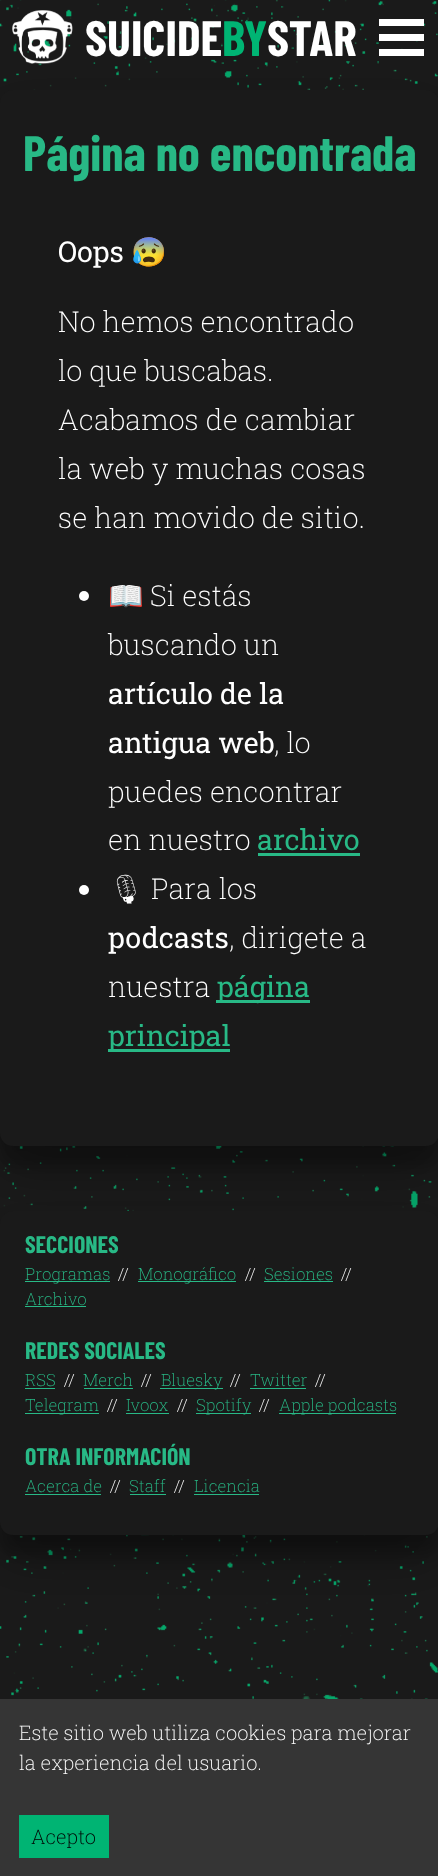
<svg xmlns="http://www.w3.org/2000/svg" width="438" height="1876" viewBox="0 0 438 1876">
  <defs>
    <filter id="blur1" x="-50%" y="-200%" width="200%" height="500%"><feGaussianBlur stdDeviation="24"/></filter>
    <filter id="blur2" x="-50%" y="-200%" width="200%" height="500%"><feGaussianBlur stdDeviation="7.5"/></filter>
  </defs>
  <rect width="100%" height="100%" fill="#ffffff"/>
  <image x="0" y="0" width="438" height="1699" href="img1.png"/>
  <rect x="0" y="114" width="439" height="1056" rx="13" fill="#000000" fill-opacity="0.3" filter="url(#blur1)"/>
  <image x="12" y="10" width="61" height="54" href="img2.png"/>
  <text x="85" y="56" font-family="Barlow Condensed" font-size="49.75" font-weight="bold" fill="#ffffff">SUICIDE</text>
  <text x="222" y="56" font-family="Barlow Condensed" font-size="49.75" font-weight="bold" fill="#00b473">BY</text>
  <text x="267" y="56" font-family="Barlow Condensed" font-size="49.75" font-weight="bold" fill="#ffffff">STAR</text>
  <rect x="379" y="19" width="45" height="7" fill="#ffffff"/>
  <rect x="379" y="34" width="45" height="7" fill="#ffffff"/>
  <rect x="379" y="49" width="45" height="7" fill="#ffffff"/>
  <rect x="0" y="109" width="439" height="1056" rx="13" fill="#000000" fill-opacity="0.22" filter="url(#blur2)"/>
  <rect x="0" y="90" width="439" height="1056" rx="13" fill="#1a1a1a"/>
  <text x="23" y="171" font-family="Barlow Condensed" font-size="49.75" font-weight="bold" fill="#28b986">Página no encontrada</text>
  <text x="58" y="262" font-family="Roboto Slab" font-size="28.75" fill="#ffffff">Oops</text>
  <text x="131" y="262" font-family="Noto Color Emoji" font-size="28.75" fill="#ffffff">😰</text>
  <text x="58" y="332" font-family="Roboto Slab" font-size="28.75" font-weight="200" fill="#ffffff">No hemos encontrado</text>
  <text x="58" y="381" font-family="Roboto Slab" font-size="28.75" font-weight="200" fill="#ffffff">lo que buscabas.</text>
  <text x="58" y="430" font-family="Roboto Slab" font-size="28.75" font-weight="200" fill="#ffffff">Acabamos de cambiar</text>
  <text x="58" y="479" font-family="Roboto Slab" font-size="28.75" font-weight="200" fill="#ffffff">la web y muchas cosas</text>
  <text x="58" y="528" font-family="Roboto Slab" font-size="28.75" font-weight="200" fill="#ffffff">se han movido de sitio.</text>
  <circle cx="84" cy="596" r="5" fill="#ffffff"/>
  <text x="108" y="606" font-family="Noto Color Emoji" font-size="28.75" fill="#ffffff">📖</text>
  <text x="150" y="606" font-family="Roboto Slab" font-size="28.75" font-weight="200" fill="#ffffff">Si estás</text>
  <text x="108" y="655" font-family="Roboto Slab" font-size="28.75" font-weight="200" fill="#ffffff">buscando un</text>
  <text x="108" y="704" font-family="Roboto Slab" font-size="28.75" fill="#ffffff">artículo de la</text>
  <text x="108" y="753" font-family="Roboto Slab" font-size="28.75" fill="#ffffff">antigua web</text>
  <text x="274" y="753" font-family="Roboto Slab" font-size="28.75" font-weight="200" fill="#ffffff">, lo</text>
  <text x="108" y="802" font-family="Roboto Slab" font-size="28.75" font-weight="200" fill="#ffffff">puedes encontrar</text>
  <text x="108" y="850" font-family="Roboto Slab" font-size="28.75" font-weight="200" fill="#ffffff">en nuestro</text>
  <text x="257" y="850" font-family="Roboto Slab" font-size="28.75" fill="#28b986">archivo</text>
  <rect x="258" y="853" width="102" height="3" fill="#28b986"/>
  <circle cx="84" cy="890" r="5" fill="#ffffff"/>
  <text x="108" y="899" font-family="Noto Emoji" font-size="28.75" font-weight="300" fill="#ffffff">🎙</text>
  <text x="151" y="899" font-family="Roboto Slab" font-size="28.75" font-weight="200" fill="#ffffff">Para los</text>
  <text x="108" y="948" font-family="Roboto Slab" font-size="28.75" fill="#ffffff">podcasts</text>
  <text x="229" y="948" font-family="Roboto Slab" font-size="28.75" font-weight="200" fill="#ffffff">, dirigete a</text>
  <text x="108" y="997" font-family="Roboto Slab" font-size="28.75" font-weight="200" fill="#ffffff">nuestra</text>
  <rect x="216" y="1000" width="94" height="3" fill="#28b986"/>
  <text x="217" y="997" font-family="Roboto Slab" font-size="28.75" fill="#28b986">página</text>
  <rect x="108" y="1049" width="122" height="3" fill="#28b986"/>
  <text x="108" y="1046" font-family="Roboto Slab" font-size="28.75" fill="#28b986">principal</text>
  <rect x="0" y="1230" width="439" height="324" rx="13" fill="#000000" fill-opacity="0.22" filter="url(#blur2)"/>
  <rect x="0" y="1235" width="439" height="324" rx="13" fill="#000000" fill-opacity="0.3" filter="url(#blur1)"/>
  <rect x="0" y="1211" width="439" height="324" rx="13" fill="#1a1a1a"/>
  <text x="25" y="1253" font-family="Barlow Condensed" font-size="24" font-weight="bold" fill="#28b986">SECCIONES</text>
  <rect x="25" y="1281" width="85" height="1" fill="#28b986"/>
  <text x="25" y="1280" font-family="Roboto Slab" font-size="16.75" font-weight="200" fill="#28b986">Programas</text>
  <text x="118" y="1280" font-family="Roboto Slab" font-size="16.75" font-weight="200" fill="#ffffff">//</text>
  <rect x="138" y="1281" width="98" height="1" fill="#28b986"/>
  <text x="138" y="1280" font-family="Roboto Slab" font-size="16.75" font-weight="200" fill="#28b986">Monográfico</text>
  <text x="245" y="1280" font-family="Roboto Slab" font-size="16.75" font-weight="200" fill="#ffffff">//</text>
  <text x="264" y="1280" font-family="Roboto Slab" font-size="16.75" font-weight="200" fill="#28b986">Sesiones</text>
  <rect x="264" y="1281" width="69" height="1" fill="#28b986"/>
  <text x="341" y="1280" font-family="Roboto Slab" font-size="16.75" font-weight="200" fill="#ffffff">//</text>
  <text x="25" y="1305" font-family="Roboto Slab" font-size="16.75" font-weight="200" fill="#28b986">Archivo</text>
  <rect x="25" y="1306" width="61" height="1" fill="#28b986"/>
  <text x="25" y="1359" font-family="Barlow Condensed" font-size="24" font-weight="bold" fill="#28b986">REDES SOCIALES</text>
  <text x="25" y="1386" font-family="Roboto Slab" font-size="16.75" font-weight="200" fill="#28b986">RSS</text>
  <rect x="25" y="1388" width="30" height="1" fill="#28b986"/>
  <text x="64" y="1386" font-family="Roboto Slab" font-size="16.75" font-weight="200" fill="#ffffff">//</text>
  <text x="83" y="1386" font-family="Roboto Slab" font-size="16.75" font-weight="200" fill="#28b986">Merch</text>
  <rect x="84" y="1388" width="49" height="1" fill="#28b986"/>
  <text x="141" y="1386" font-family="Roboto Slab" font-size="16.75" font-weight="200" fill="#ffffff">//</text>
  <rect x="160" y="1388" width="63" height="1" fill="#28b986"/>
  <text x="161" y="1386" font-family="Roboto Slab" font-size="16.75" font-weight="200" fill="#28b986">Bluesky</text>
  <text x="230" y="1386" font-family="Roboto Slab" font-size="16.75" font-weight="200" fill="#ffffff">//</text>
  <text x="250" y="1386" font-family="Roboto Slab" font-size="16.75" font-weight="200" fill="#28b986">Twitter</text>
  <rect x="250" y="1388" width="56" height="1" fill="#28b986"/>
  <text x="315" y="1386" font-family="Roboto Slab" font-size="16.75" font-weight="200" fill="#ffffff">//</text>
  <rect x="25" y="1413" width="74" height="1" fill="#28b986"/>
  <text x="25" y="1411" font-family="Roboto Slab" font-size="16.75" font-weight="200" fill="#28b986">Telegram</text>
  <text x="107" y="1411" font-family="Roboto Slab" font-size="16.75" font-weight="200" fill="#ffffff">//</text>
  <text x="126" y="1411" font-family="Roboto Slab" font-size="16.75" font-weight="200" fill="#28b986">Ivoox</text>
  <rect x="126" y="1413" width="43" height="1" fill="#28b986"/>
  <text x="177" y="1411" font-family="Roboto Slab" font-size="16.75" font-weight="200" fill="#ffffff">//</text>
  <rect x="196" y="1413" width="55" height="1" fill="#28b986"/>
  <text x="196" y="1411" font-family="Roboto Slab" font-size="16.75" font-weight="200" fill="#28b986">Spotify</text>
  <text x="259" y="1411" font-family="Roboto Slab" font-size="16.75" font-weight="200" fill="#ffffff">//</text>
  <rect x="279" y="1413" width="117" height="1" fill="#28b986"/>
  <text x="279" y="1411" font-family="Roboto Slab" font-size="16.75" font-weight="200" fill="#28b986">Apple podcasts</text>
  <text x="25" y="1465" font-family="Barlow Condensed" font-size="24" font-weight="bold" fill="#28b986">OTRA INFORMACIÓN</text>
  <text x="25" y="1492" font-family="Roboto Slab" font-size="16.75" font-weight="200" fill="#28b986">Acerca de</text>
  <rect x="25" y="1494" width="76" height="1" fill="#28b986"/>
  <text x="110" y="1492" font-family="Roboto Slab" font-size="16.75" font-weight="200" fill="#ffffff">//</text>
  <text x="129" y="1492" font-family="Roboto Slab" font-size="16.75" font-weight="200" fill="#28b986">Staff</text>
  <rect x="130" y="1494" width="36" height="1" fill="#28b986"/>
  <text x="174" y="1492" font-family="Roboto Slab" font-size="16.75" font-weight="200" fill="#ffffff">//</text>
  <text x="194" y="1492" font-family="Roboto Slab" font-size="16.75" font-weight="200" fill="#28b986">Licencia</text>
  <rect x="194" y="1494" width="65" height="1" fill="#28b986"/>
  <rect x="0" y="1699" width="438" height="177" fill="#353535"/>
  <text x="19" y="1740" font-family="Roboto Slab" font-size="20" font-weight="200" fill="#ffffff">Este sitio web utiliza cookies para mejorar</text>
  <text x="19" y="1770" font-family="Roboto Slab" font-size="20" font-weight="200" fill="#ffffff">la experiencia del usuario.</text>
  <rect x="19" y="1815" width="90" height="43" fill="#00b473"/>
  <text x="31" y="1844" font-family="Roboto Slab" font-size="20" font-weight="200" fill="#000000">Acepto</text>
</svg>
